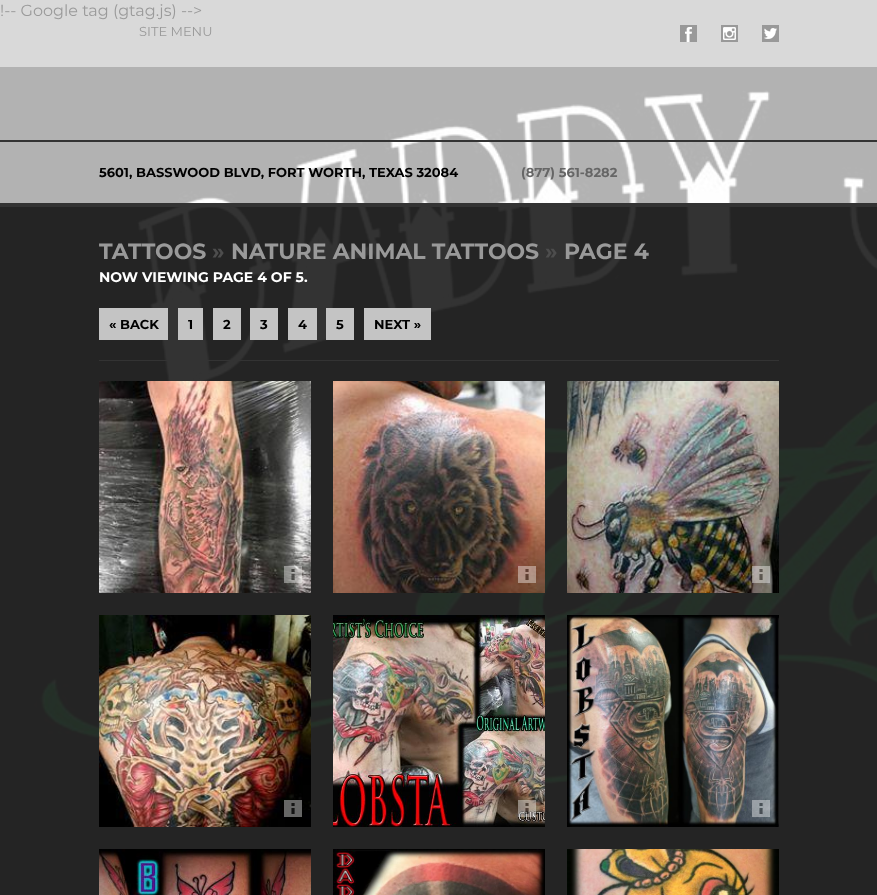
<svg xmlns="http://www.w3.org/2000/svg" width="877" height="895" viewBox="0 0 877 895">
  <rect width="100%" height="100%" fill="#ffffff"/>
  <text x="0" y="16" font-family="Montserrat" font-size="16" fill="#4d4d4d">!-- Google tag (gtag.js) --&gt;</text>
  <image x="0" y="0" width="877" height="895" href="img1.png"/>
  <rect x="0" y="0" width="877" height="67" fill="#ffffff" fill-opacity="0.5"/>
  <text x="139" y="36" font-family="Montserrat" font-size="13" fill="#999999">SITE MENU</text>
  <image x="680" y="25" width="17" height="17" href="img2.png"/>
  <image x="721" y="25" width="17" height="17" href="img3.png"/>
  <image x="762" y="25" width="17" height="17" href="img4.png"/>
  <rect x="0" y="140" width="877" height="2" fill="#333333"/>
  <rect x="0" y="203" width="877" height="4" fill="#333333"/>
  <text x="99" y="177" font-family="Montserrat" font-size="13" font-weight="bold" fill="#000000">5601, BASSWOOD BLVD, FORT WORTH, TEXAS 32084</text>
  <text x="521" y="177" font-family="Montserrat" font-size="13" font-weight="bold" fill="#666666">(877) 561-8282</text>
  <rect x="0" y="207" width="877" height="688" fill="#000000" fill-opacity="0.8"/>
  <text x="99" y="259" font-family="Montserrat" font-size="22" font-weight="bold" fill="#999999">TATTOOS</text>
  <text x="212" y="259" font-family="Montserrat" font-size="22" font-weight="bold" fill="#4d4d4d">»</text>
  <text x="231" y="259" font-family="Montserrat" font-size="22" font-weight="bold" fill="#999999">NATURE ANIMAL TATTOOS</text>
  <text x="545" y="259" font-family="Montserrat" font-size="22" font-weight="bold" fill="#4d4d4d">»</text>
  <text x="564" y="259" font-family="Montserrat" font-size="22" font-weight="bold" fill="#999999">PAGE 4</text>
  <text x="99" y="282" font-family="Montserrat" font-size="14" font-weight="bold" fill="#ffffff">NOW VIEWING PAGE 4 OF 5.</text>
  <rect x="99" y="360" width="680" height="1" fill="#333333"/>
  <rect x="99" y="308" width="69" height="32" fill="#c4c4c4"/>
  <text x="109" y="329" font-family="Montserrat" font-size="13" font-weight="bold" fill="#000000">« BACK</text>
  <rect x="178" y="308" width="25" height="32" fill="#c4c4c4"/>
  <text x="188" y="329" font-family="Montserrat" font-size="13" font-weight="bold" fill="#000000">1</text>
  <rect x="213" y="308" width="28" height="32" fill="#c4c4c4"/>
  <text x="223" y="329" font-family="Montserrat" font-size="13" font-weight="bold" fill="#000000">2</text>
  <rect x="250" y="308" width="28" height="32" fill="#c4c4c4"/>
  <text x="260" y="329" font-family="Montserrat" font-size="13" font-weight="bold" fill="#000000">3</text>
  <rect x="288" y="308" width="29" height="32" fill="#c4c4c4"/>
  <text x="298" y="329" font-family="Montserrat" font-size="13" font-weight="bold" fill="#000000">4</text>
  <rect x="326" y="308" width="28" height="32" fill="#c4c4c4"/>
  <text x="336" y="329" font-family="Montserrat" font-size="13" font-weight="bold" fill="#000000">5</text>
  <rect x="364" y="308" width="67" height="32" fill="#c4c4c4"/>
  <text x="374" y="329" font-family="Montserrat" font-size="13" font-weight="bold" fill="#000000">NEXT »</text>
  <image x="99" y="381" width="212" height="212" href="img5.png"/>
  <image x="284" y="566" width="18" height="17" href="img6.png"/>
  <image x="333" y="381" width="212" height="212" href="img7.png"/>
  <image x="518" y="566" width="18" height="17" href="img8.png"/>
  <image x="567" y="381" width="212" height="212" href="img9.png"/>
  <image x="752" y="566" width="18" height="17" href="img10.png"/>
  <image x="99" y="615" width="212" height="212" href="img11.png"/>
  <image x="284" y="800" width="18" height="17" href="img12.png"/>
  <image x="333" y="615" width="212" height="212" href="img13.png"/>
  <image x="518" y="800" width="18" height="17" href="img14.png"/>
  <image x="567" y="615" width="212" height="212" href="img15.png"/>
  <image x="752" y="800" width="18" height="17" href="img16.png"/>
  <image x="99" y="849" width="212" height="46" href="img17.png"/>
  <image x="333" y="849" width="212" height="46" href="img18.png"/>
  <image x="567" y="849" width="212" height="46" href="img19.png"/>
</svg>
